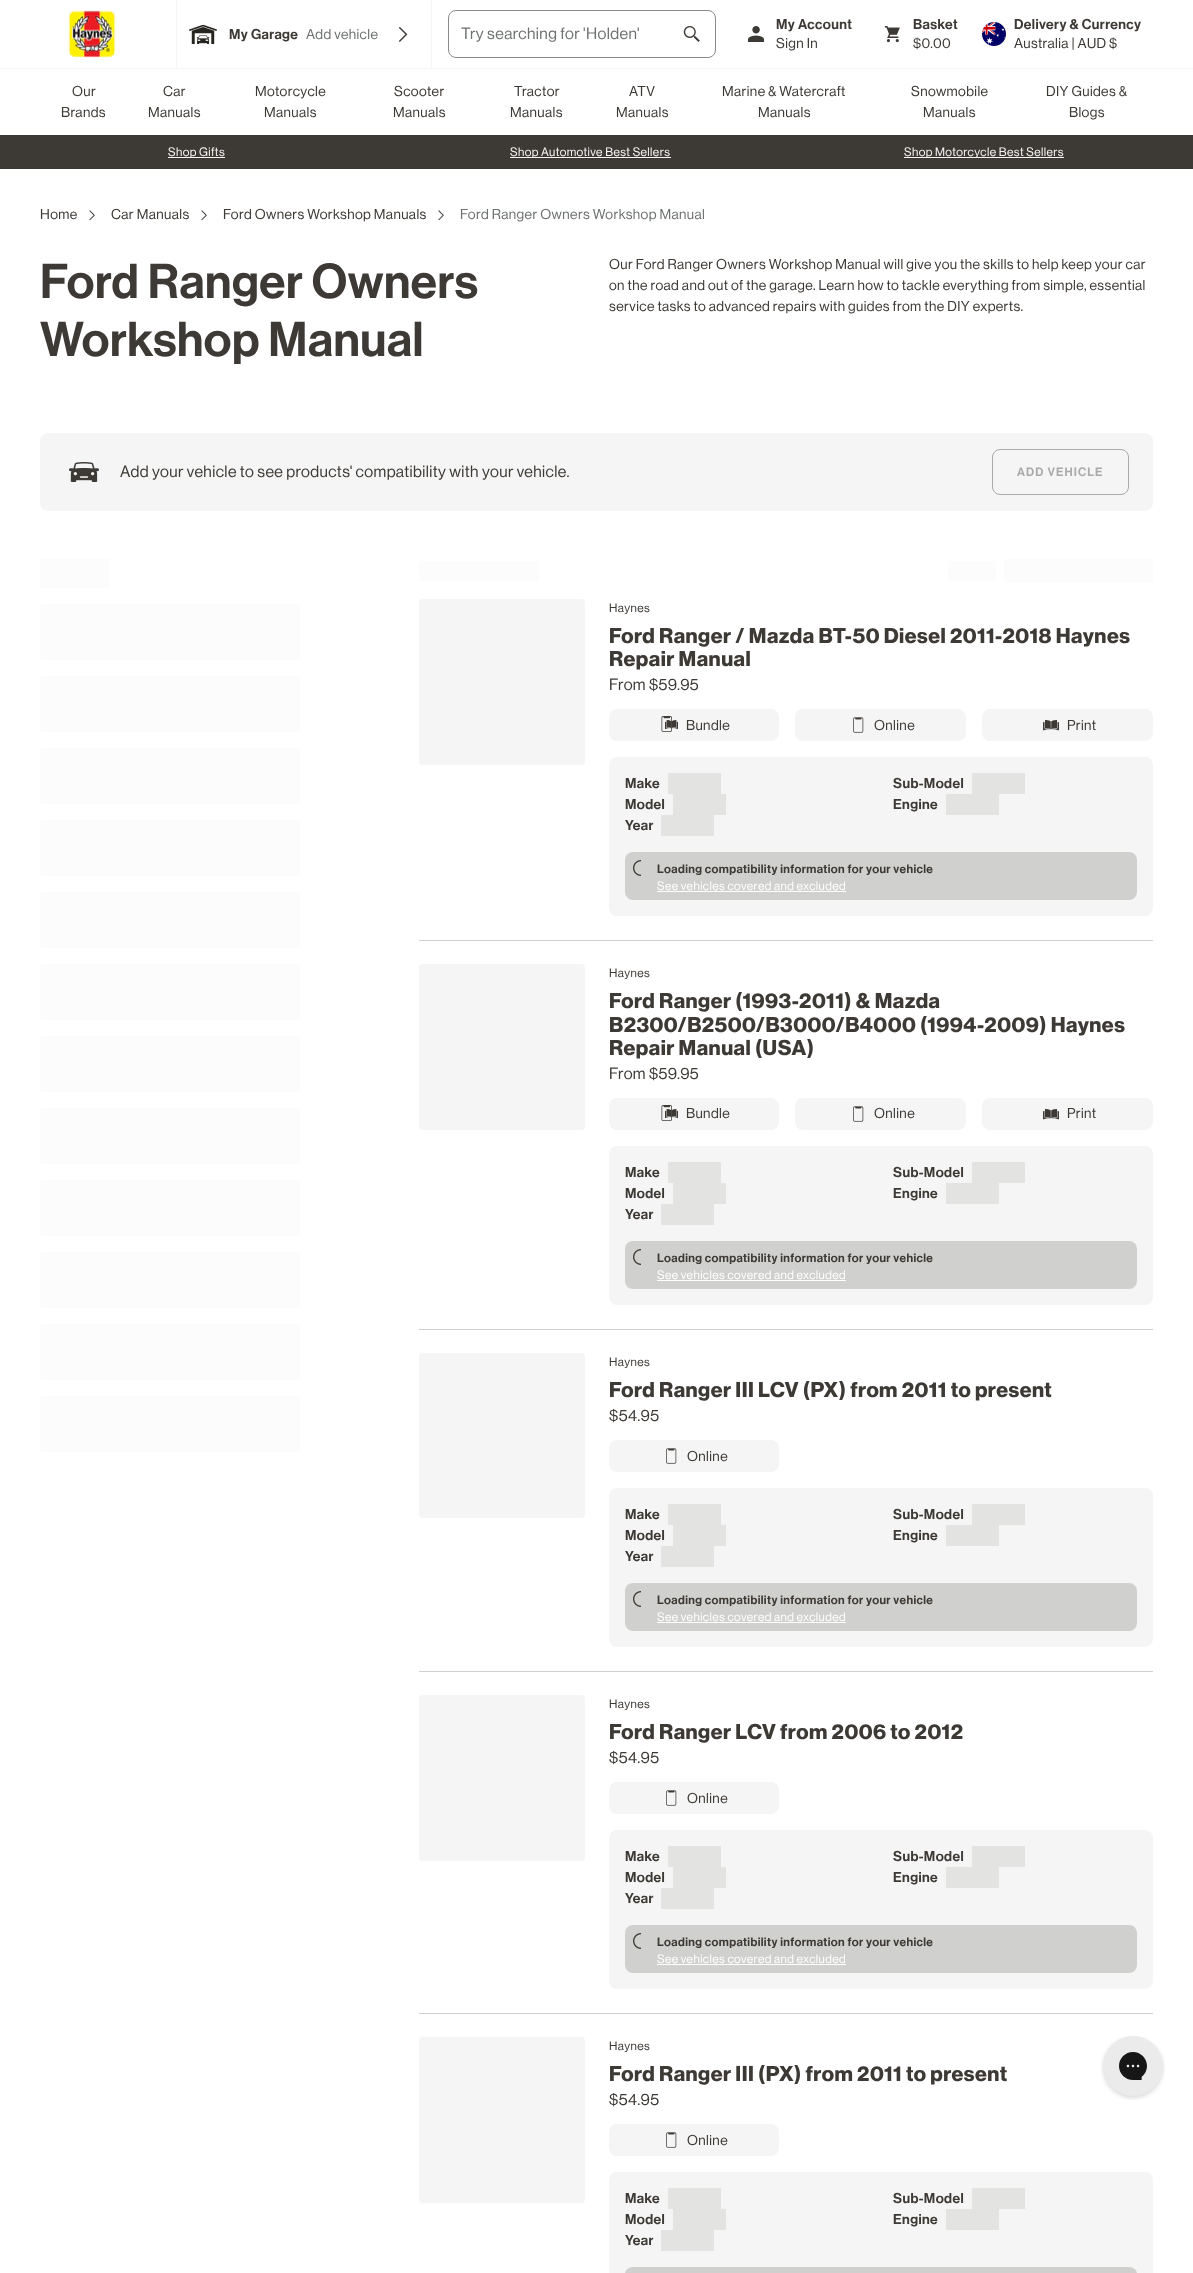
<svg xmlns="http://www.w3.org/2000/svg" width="1193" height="2273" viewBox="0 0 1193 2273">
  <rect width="100%" height="100%" fill="#ffffff"/>
  <image x="68" y="10" width="48" height="48" href="img1.png"/>
  <rect x="431" y="0" width="1" height="68" fill="#f5f5f5"/>
  <rect x="176" y="0" width="1" height="68" fill="#f5f5f5"/>
  <image x="189" y="24" width="28" height="20" href="img2.png"/>
  <text x="229" y="39" font-family="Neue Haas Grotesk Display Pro" font-size="14" font-weight="500" letter-spacing="0.4" fill="#3d3935">My Garage</text>
  <text x="306" y="39" font-family="'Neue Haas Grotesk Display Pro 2'" font-size="14" font-weight="500" letter-spacing="0.4" fill="#6e7172">Add vehicle</text>
  <image x="399" y="27" width="9" height="15" href="img3.png"/>
  <rect x="448.5" y="10.5" width="267" height="47" rx="7.5" fill="none" stroke="#888b8d"/>
  <text x="461" y="39" font-family="'Neue Haas Grotesk Display Pro 2'" font-size="16" font-weight="500" letter-spacing="0.4" fill="#6e7172">Try searching for 'Holden'</text>
  <image x="683" y="26" width="17" height="16" href="img4.png"/>
  <image x="748" y="26" width="16" height="16" href="img5.png"/>
  <text x="776" y="29" font-family="Neue Haas Grotesk Display Pro" font-size="14" font-weight="500" letter-spacing="0.4" fill="#3d3935">My Account</text>
  <text x="776" y="48" font-family="'Neue Haas Grotesk Display Pro 2'" font-size="14" font-weight="500" letter-spacing="0.4" fill="#3d3935">Sign In</text>
  <image x="884" y="26" width="16" height="17" href="img6.png"/>
  <text x="913" y="29" font-family="Neue Haas Grotesk Display Pro" font-size="14" font-weight="500" letter-spacing="0.4" fill="#3d3935">Basket</text>
  <text x="913" y="48" font-family="'Neue Haas Grotesk Display Pro 2'" font-size="14" font-weight="500" letter-spacing="0.4" fill="#3d3935">$0.00</text>
  <image x="982" y="22" width="24" height="24" href="img7.png"/>
  <text x="1014" y="29" font-family="Neue Haas Grotesk Display Pro" font-size="14" font-weight="500" letter-spacing="0.4" fill="#3d3935">Delivery &amp; Currency</text>
  <text x="1014" y="48" font-family="'Neue Haas Grotesk Display Pro 2'" font-size="14" font-weight="500" letter-spacing="0.4" fill="#3d3935">Australia | AUD $</text>
  <rect x="0" y="68" width="1193" height="1" fill="#f5f5f5"/>
  <text x="72" y="96" font-family="'Neue Haas Grotesk Display Pro 2'" font-size="14" font-weight="500" letter-spacing="0.4" fill="#3d3935">Our</text>
  <text x="61" y="117" font-family="'Neue Haas Grotesk Display Pro 2'" font-size="14" font-weight="500" letter-spacing="0.4" fill="#3d3935">Brands</text>
  <text x="163" y="96" font-family="'Neue Haas Grotesk Display Pro 2'" font-size="14" font-weight="500" letter-spacing="0.4" fill="#3d3935">Car</text>
  <text x="148" y="117" font-family="'Neue Haas Grotesk Display Pro 2'" font-size="14" font-weight="500" letter-spacing="0.4" fill="#3d3935">Manuals</text>
  <text x="255" y="96" font-family="'Neue Haas Grotesk Display Pro 2'" font-size="14" font-weight="500" letter-spacing="0.4" fill="#3d3935">Motorcycle</text>
  <text x="264" y="117" font-family="'Neue Haas Grotesk Display Pro 2'" font-size="14" font-weight="500" letter-spacing="0.4" fill="#3d3935">Manuals</text>
  <text x="394" y="96" font-family="'Neue Haas Grotesk Display Pro 2'" font-size="14" font-weight="500" letter-spacing="0.4" fill="#3d3935">Scooter</text>
  <text x="393" y="117" font-family="'Neue Haas Grotesk Display Pro 2'" font-size="14" font-weight="500" letter-spacing="0.4" fill="#3d3935">Manuals</text>
  <text x="514" y="96" font-family="'Neue Haas Grotesk Display Pro 2'" font-size="14" font-weight="500" letter-spacing="0.4" fill="#3d3935">Tractor</text>
  <text x="510" y="117" font-family="'Neue Haas Grotesk Display Pro 2'" font-size="14" font-weight="500" letter-spacing="0.4" fill="#3d3935">Manuals</text>
  <text x="629" y="96" font-family="'Neue Haas Grotesk Display Pro 2'" font-size="14" font-weight="500" letter-spacing="0.4" fill="#3d3935">ATV</text>
  <text x="616" y="117" font-family="'Neue Haas Grotesk Display Pro 2'" font-size="14" font-weight="500" letter-spacing="0.4" fill="#3d3935">Manuals</text>
  <text x="722" y="96" font-family="'Neue Haas Grotesk Display Pro 2'" font-size="14" font-weight="500" letter-spacing="0.4" fill="#3d3935">Marine &amp; Watercraft</text>
  <text x="758" y="117" font-family="'Neue Haas Grotesk Display Pro 2'" font-size="14" font-weight="500" letter-spacing="0.4" fill="#3d3935">Manuals</text>
  <text x="911" y="96" font-family="'Neue Haas Grotesk Display Pro 2'" font-size="14" font-weight="500" letter-spacing="0.4" fill="#3d3935">Snowmobile</text>
  <text x="923" y="117" font-family="'Neue Haas Grotesk Display Pro 2'" font-size="14" font-weight="500" letter-spacing="0.4" fill="#3d3935">Manuals</text>
  <text x="1046" y="96" font-family="'Neue Haas Grotesk Display Pro 2'" font-size="14" font-weight="500" letter-spacing="0.4" fill="#3d3935">DIY Guides &amp;</text>
  <text x="1069" y="117" font-family="'Neue Haas Grotesk Display Pro 2'" font-size="14" font-weight="500" letter-spacing="0.4" fill="#3d3935">Blogs</text>
  <rect x="0" y="135" width="1193" height="34" fill="#3d3935"/>
  <rect x="168" y="157" width="57" height="1" fill="#f5f5f5"/>
  <text x="168" y="156" font-family="'Neue Haas Grotesk Display Pro 2'" font-size="12" font-weight="500" letter-spacing="0.4" fill="#f5f5f5">Shop Gifts</text>
  <rect x="510" y="157" width="161" height="1" fill="#f5f5f5"/>
  <text x="510" y="156" font-family="'Neue Haas Grotesk Display Pro 2'" font-size="12" font-weight="500" letter-spacing="0.4" fill="#f5f5f5">Shop Automotive Best Sellers</text>
  <rect x="904" y="157" width="160" height="1" fill="#f5f5f5"/>
  <text x="904" y="156" font-family="'Neue Haas Grotesk Display Pro 2'" font-size="12" font-weight="500" letter-spacing="0.4" fill="#f5f5f5">Shop Motorcycle Best Sellers</text>
  <text x="40" y="219" font-family="'Neue Haas Grotesk Display Pro 2'" font-size="14" font-weight="500" letter-spacing="0.4" fill="#3d3935">Home</text>
  <image x="89" y="210" width="6" height="11" href="img8.png"/>
  <text x="111" y="219" font-family="'Neue Haas Grotesk Display Pro 2'" font-size="14" font-weight="500" letter-spacing="0.4" fill="#3d3935">Car Manuals</text>
  <image x="201" y="210" width="6" height="11" href="img8.png"/>
  <text x="223" y="219" font-family="'Neue Haas Grotesk Display Pro 2'" font-size="14" font-weight="500" letter-spacing="0.4" fill="#3d3935">Ford Owners Workshop Manuals</text>
  <image x="438" y="210" width="6" height="11" href="img8.png"/>
  <text x="460" y="219" font-family="'Neue Haas Grotesk Display Pro 2'" font-size="14" font-weight="500" letter-spacing="0.4" fill="#6e7172">Ford Ranger Owners Workshop Manual</text>
  <text x="40" y="298" font-family="Neue Haas Grotesk Display Pro" font-size="48" font-weight="500" letter-spacing="0.5" fill="#3d3935">Ford Ranger Owners</text>
  <text x="40" y="356" font-family="Neue Haas Grotesk Display Pro" font-size="48" font-weight="500" letter-spacing="0.5" fill="#3d3935">Workshop Manual</text>
  <text x="609" y="269" font-family="'Neue Haas Grotesk Display Pro 2'" font-size="14" font-weight="500" letter-spacing="0.4" fill="#3d3935">Our Ford Ranger Owners Workshop Manual will give you the skills to help keep your car</text>
  <text x="609" y="290" font-family="'Neue Haas Grotesk Display Pro 2'" font-size="14" font-weight="500" letter-spacing="0.4" fill="#3d3935">on the road and out of the garage. Learn how to tackle everything from simple, essential</text>
  <text x="609" y="311" font-family="'Neue Haas Grotesk Display Pro 2'" font-size="14" font-weight="500" letter-spacing="0.4" fill="#3d3935">service tasks to advanced repairs with guides from the DIY experts.</text>
  <rect x="40" y="433" width="1113" height="78" rx="8" fill="#f5f5f5"/>
  <image x="69" y="462" width="30" height="20" href="img9.png"/>
  <text x="120" y="477" font-family="'Neue Haas Grotesk Display Pro 2'" font-size="16" font-weight="500" letter-spacing="0.4" fill="#3d3935">Add your vehicle to see products' compatibility with your vehicle.</text>
  <rect x="992.5" y="449.5" width="136" height="45" rx="7.5" fill="none" stroke="#abaaa8"/>
  <text x="1017" y="476" font-family="Neue Haas Grotesk Display Pro" font-size="12" font-weight="500" letter-spacing="1.1" fill="#abaaa8">ADD VEHICLE</text>
  <rect x="40" y="559" width="70" height="29" fill="#fcfcfc"/>
  <rect x="40" y="604" width="260" height="56" rx="4" fill="#fcfcfc"/>
  <rect x="40" y="676" width="260" height="56" rx="4" fill="#fcfcfc"/>
  <rect x="40" y="748" width="260" height="56" rx="4" fill="#fcfcfc"/>
  <rect x="40" y="820" width="260" height="56" rx="4" fill="#fcfcfc"/>
  <rect x="40" y="892" width="260" height="56" rx="4" fill="#fcfcfc"/>
  <rect x="40" y="964" width="260" height="56" rx="4" fill="#fcfcfc"/>
  <rect x="40" y="1036" width="260" height="56" rx="4" fill="#fcfcfc"/>
  <rect x="40" y="1108" width="260" height="56" rx="4" fill="#fcfcfc"/>
  <rect x="40" y="1180" width="260" height="56" rx="4" fill="#fcfcfc"/>
  <rect x="40" y="1252" width="260" height="56" rx="4" fill="#fcfcfc"/>
  <rect x="40" y="1324" width="260" height="56" rx="4" fill="#fcfcfc"/>
  <rect x="40" y="1396" width="260" height="56" rx="4" fill="#fcfcfc"/>
  <rect x="419" y="561" width="120" height="21" fill="#fcfcfc"/>
  <rect x="948" y="561" width="48" height="21" fill="#fcfcfc"/>
  <rect x="1004" y="559" width="149" height="24" rx="4" fill="#fcfcfc"/>
  <rect x="419" y="599" width="166" height="166" rx="4" fill="#f5f5f5"/>
  <text x="609" y="612" font-family="'Neue Haas Grotesk Display Pro 2'" font-size="12" font-weight="500" letter-spacing="0.4" fill="#3d3935">Haynes</text>
  <text x="609" y="643" font-family="Neue Haas Grotesk Display Pro" font-size="21.1" font-weight="bold" letter-spacing="0.5" fill="#3d3935">Ford Ranger / Mazda BT-50 Diesel 2011-2018 Haynes</text>
  <text x="609" y="666" font-family="Neue Haas Grotesk Display Pro" font-size="21.1" font-weight="bold" letter-spacing="0.5" fill="#3d3935">Repair Manual</text>
  <text x="609" y="690" font-family="'Neue Haas Grotesk Display Pro 2'" font-size="16" font-weight="500" letter-spacing="0.4" fill="#3d3935">From $59.95</text>
  <rect x="609" y="709" width="170" height="32" rx="8" fill="#f5f5f5"/>
  <image x="661" y="716" width="17" height="16" href="img10.png"/>
  <text x="686" y="730" font-family="'Neue Haas Grotesk Display Pro 2'" font-size="14" font-weight="500" letter-spacing="0.4" fill="#3d3935">Bundle</text>
  <rect x="795" y="709" width="171" height="32" rx="8" fill="#f5f5f5"/>
  <image x="853" y="717" width="11" height="16" href="img11.png"/>
  <text x="874" y="730" font-family="'Neue Haas Grotesk Display Pro 2'" font-size="14" font-weight="500" letter-spacing="0.4" fill="#3d3935">Online</text>
  <rect x="982" y="709" width="171" height="32" rx="8" fill="#f5f5f5"/>
  <image x="1043" y="720" width="16" height="11" href="img12.png"/>
  <text x="1067" y="730" font-family="'Neue Haas Grotesk Display Pro 2'" font-size="14" font-weight="500" letter-spacing="0.4" fill="#3d3935">Print</text>
  <rect x="609" y="757" width="544" height="159" rx="8" fill="#f5f5f5"/>
  <text x="625" y="788" font-family="Neue Haas Grotesk Display Pro" font-size="14" font-weight="500" letter-spacing="0.4" fill="#3d3935">Make</text>
  <rect x="668" y="773" width="53" height="21" fill="#e3e3e2"/>
  <text x="893" y="788" font-family="Neue Haas Grotesk Display Pro" font-size="14" font-weight="500" letter-spacing="0.4" fill="#3d3935">Sub-Model</text>
  <rect x="972" y="773" width="53" height="21" fill="#e3e3e2"/>
  <text x="625" y="809" font-family="Neue Haas Grotesk Display Pro" font-size="14" font-weight="500" letter-spacing="0.4" fill="#3d3935">Model</text>
  <rect x="673" y="794" width="53" height="21" fill="#e3e3e2"/>
  <text x="893" y="809" font-family="Neue Haas Grotesk Display Pro" font-size="14" font-weight="500" letter-spacing="0.4" fill="#3d3935">Engine</text>
  <rect x="946" y="794" width="53" height="21" fill="#e3e3e2"/>
  <text x="625" y="830" font-family="Neue Haas Grotesk Display Pro" font-size="14" font-weight="500" letter-spacing="0.4" fill="#3d3935">Year</text>
  <rect x="661" y="815" width="53" height="21" fill="#e3e3e2"/>
  <rect x="625" y="852" width="512" height="48" rx="8" fill="#d0d0ce"/>
  <image x="633" y="860" width="8" height="16" href="img13.png"/>
  <text x="657" y="873" font-family="Neue Haas Grotesk Display Pro" font-size="12" font-weight="500" letter-spacing="0.4" fill="#3d3935">Loading compatibility information for your vehicle</text>
  <text x="657" y="890" font-family="'Neue Haas Grotesk Display Pro 2'" font-size="12" font-weight="500" letter-spacing="0.4" fill="#ffffff">See vehicles covered and excluded</text>
  <rect x="657" y="891" width="189" height="1" fill="#ffffff"/>
  <rect x="419" y="940" width="734" height="1" fill="#d0d0ce"/>
  <rect x="419" y="964" width="166" height="166" rx="4" fill="#f5f5f5"/>
  <text x="609" y="977" font-family="'Neue Haas Grotesk Display Pro 2'" font-size="12" font-weight="500" letter-spacing="0.4" fill="#3d3935">Haynes</text>
  <text x="609" y="1008" font-family="Neue Haas Grotesk Display Pro" font-size="21.1" font-weight="bold" letter-spacing="0.5" fill="#3d3935">Ford Ranger (1993-2011) &amp; Mazda</text>
  <text x="609" y="1032" font-family="Neue Haas Grotesk Display Pro" font-size="21.1" font-weight="bold" letter-spacing="0.5" fill="#3d3935">B2300/B2500/B3000/B4000 (1994-2009) Haynes</text>
  <text x="609" y="1055" font-family="Neue Haas Grotesk Display Pro" font-size="21.1" font-weight="bold" letter-spacing="0.5" fill="#3d3935">Repair Manual (USA)</text>
  <text x="609" y="1079" font-family="'Neue Haas Grotesk Display Pro 2'" font-size="16" font-weight="500" letter-spacing="0.4" fill="#3d3935">From $59.95</text>
  <rect x="609" y="1098" width="170" height="32" rx="8" fill="#f5f5f5"/>
  <image x="661" y="1105" width="17" height="16" href="img10.png"/>
  <text x="686" y="1118" font-family="'Neue Haas Grotesk Display Pro 2'" font-size="14" font-weight="500" letter-spacing="0.4" fill="#3d3935">Bundle</text>
  <rect x="795" y="1098" width="171" height="32" rx="8" fill="#f5f5f5"/>
  <image x="853" y="1106" width="11" height="16" href="img11.png"/>
  <text x="874" y="1118" font-family="'Neue Haas Grotesk Display Pro 2'" font-size="14" font-weight="500" letter-spacing="0.4" fill="#3d3935">Online</text>
  <rect x="982" y="1098" width="171" height="32" rx="8" fill="#f5f5f5"/>
  <image x="1043" y="1109" width="16" height="11" href="img12.png"/>
  <text x="1067" y="1118" font-family="'Neue Haas Grotesk Display Pro 2'" font-size="14" font-weight="500" letter-spacing="0.4" fill="#3d3935">Print</text>
  <rect x="609" y="1146" width="544" height="159" rx="8" fill="#f5f5f5"/>
  <text x="625" y="1177" font-family="Neue Haas Grotesk Display Pro" font-size="14" font-weight="500" letter-spacing="0.4" fill="#3d3935">Make</text>
  <rect x="668" y="1162" width="53" height="21" fill="#e3e3e2"/>
  <text x="893" y="1177" font-family="Neue Haas Grotesk Display Pro" font-size="14" font-weight="500" letter-spacing="0.4" fill="#3d3935">Sub-Model</text>
  <rect x="972" y="1162" width="53" height="21" fill="#e3e3e2"/>
  <text x="625" y="1198" font-family="Neue Haas Grotesk Display Pro" font-size="14" font-weight="500" letter-spacing="0.4" fill="#3d3935">Model</text>
  <rect x="673" y="1183" width="53" height="21" fill="#e3e3e2"/>
  <text x="893" y="1198" font-family="Neue Haas Grotesk Display Pro" font-size="14" font-weight="500" letter-spacing="0.4" fill="#3d3935">Engine</text>
  <rect x="946" y="1183" width="53" height="21" fill="#e3e3e2"/>
  <text x="625" y="1219" font-family="Neue Haas Grotesk Display Pro" font-size="14" font-weight="500" letter-spacing="0.4" fill="#3d3935">Year</text>
  <rect x="661" y="1204" width="53" height="21" fill="#e3e3e2"/>
  <rect x="625" y="1241" width="512" height="48" rx="8" fill="#d0d0ce"/>
  <image x="633" y="1249" width="8" height="16" href="img13.png"/>
  <text x="657" y="1262" font-family="Neue Haas Grotesk Display Pro" font-size="12" font-weight="500" letter-spacing="0.4" fill="#3d3935">Loading compatibility information for your vehicle</text>
  <text x="657" y="1279" font-family="'Neue Haas Grotesk Display Pro 2'" font-size="12" font-weight="500" letter-spacing="0.4" fill="#ffffff">See vehicles covered and excluded</text>
  <rect x="657" y="1280" width="189" height="1" fill="#ffffff"/>
  <rect x="419" y="1329" width="734" height="1" fill="#d0d0ce"/>
  <rect x="419" y="1353" width="166" height="165" rx="4" fill="#f5f5f5"/>
  <text x="609" y="1366" font-family="'Neue Haas Grotesk Display Pro 2'" font-size="12" font-weight="500" letter-spacing="0.4" fill="#3d3935">Haynes</text>
  <text x="609" y="1397" font-family="Neue Haas Grotesk Display Pro" font-size="21.1" font-weight="bold" letter-spacing="0.5" fill="#3d3935">Ford Ranger III LCV (PX) from 2011 to present</text>
  <text x="609" y="1421" font-family="'Neue Haas Grotesk Display Pro 2'" font-size="16" font-weight="500" letter-spacing="0.4" fill="#3d3935">$54.95</text>
  <rect x="609" y="1440" width="170" height="32" rx="8" fill="#f5f5f5"/>
  <image x="666" y="1448" width="11" height="16" href="img11.png"/>
  <text x="687" y="1461" font-family="'Neue Haas Grotesk Display Pro 2'" font-size="14" font-weight="500" letter-spacing="0.4" fill="#3d3935">Online</text>
  <rect x="609" y="1488" width="544" height="159" rx="8" fill="#f5f5f5"/>
  <text x="625" y="1519" font-family="Neue Haas Grotesk Display Pro" font-size="14" font-weight="500" letter-spacing="0.4" fill="#3d3935">Make</text>
  <rect x="668" y="1504" width="53" height="21" fill="#e3e3e2"/>
  <text x="893" y="1519" font-family="Neue Haas Grotesk Display Pro" font-size="14" font-weight="500" letter-spacing="0.4" fill="#3d3935">Sub-Model</text>
  <rect x="972" y="1504" width="53" height="21" fill="#e3e3e2"/>
  <text x="625" y="1540" font-family="Neue Haas Grotesk Display Pro" font-size="14" font-weight="500" letter-spacing="0.4" fill="#3d3935">Model</text>
  <rect x="673" y="1525" width="53" height="21" fill="#e3e3e2"/>
  <text x="893" y="1540" font-family="Neue Haas Grotesk Display Pro" font-size="14" font-weight="500" letter-spacing="0.4" fill="#3d3935">Engine</text>
  <rect x="946" y="1525" width="53" height="21" fill="#e3e3e2"/>
  <text x="625" y="1561" font-family="Neue Haas Grotesk Display Pro" font-size="14" font-weight="500" letter-spacing="0.4" fill="#3d3935">Year</text>
  <rect x="661" y="1546" width="53" height="21" fill="#e3e3e2"/>
  <rect x="625" y="1583" width="512" height="48" rx="8" fill="#d0d0ce"/>
  <image x="633" y="1591" width="8" height="16" href="img13.png"/>
  <text x="657" y="1604" font-family="Neue Haas Grotesk Display Pro" font-size="12" font-weight="500" letter-spacing="0.4" fill="#3d3935">Loading compatibility information for your vehicle</text>
  <text x="657" y="1621" font-family="'Neue Haas Grotesk Display Pro 2'" font-size="12" font-weight="500" letter-spacing="0.4" fill="#ffffff">See vehicles covered and excluded</text>
  <rect x="657" y="1622" width="189" height="1" fill="#ffffff"/>
  <rect x="419" y="1671" width="734" height="1" fill="#d0d0ce"/>
  <rect x="419" y="1695" width="166" height="166" rx="4" fill="#f5f5f5"/>
  <text x="609" y="1708" font-family="'Neue Haas Grotesk Display Pro 2'" font-size="12" font-weight="500" letter-spacing="0.4" fill="#3d3935">Haynes</text>
  <text x="609" y="1739" font-family="Neue Haas Grotesk Display Pro" font-size="21.1" font-weight="bold" letter-spacing="0.5" fill="#3d3935">Ford Ranger LCV from 2006 to 2012</text>
  <text x="609" y="1763" font-family="'Neue Haas Grotesk Display Pro 2'" font-size="16" font-weight="500" letter-spacing="0.4" fill="#3d3935">$54.95</text>
  <rect x="609" y="1782" width="170" height="32" rx="8" fill="#f5f5f5"/>
  <image x="666" y="1790" width="11" height="16" href="img11.png"/>
  <text x="687" y="1803" font-family="'Neue Haas Grotesk Display Pro 2'" font-size="14" font-weight="500" letter-spacing="0.4" fill="#3d3935">Online</text>
  <rect x="609" y="1830" width="544" height="159" rx="8" fill="#f5f5f5"/>
  <text x="625" y="1861" font-family="Neue Haas Grotesk Display Pro" font-size="14" font-weight="500" letter-spacing="0.4" fill="#3d3935">Make</text>
  <rect x="668" y="1846" width="53" height="21" fill="#e3e3e2"/>
  <text x="893" y="1861" font-family="Neue Haas Grotesk Display Pro" font-size="14" font-weight="500" letter-spacing="0.4" fill="#3d3935">Sub-Model</text>
  <rect x="972" y="1846" width="53" height="21" fill="#e3e3e2"/>
  <text x="625" y="1882" font-family="Neue Haas Grotesk Display Pro" font-size="14" font-weight="500" letter-spacing="0.4" fill="#3d3935">Model</text>
  <rect x="673" y="1867" width="53" height="21" fill="#e3e3e2"/>
  <text x="893" y="1882" font-family="Neue Haas Grotesk Display Pro" font-size="14" font-weight="500" letter-spacing="0.4" fill="#3d3935">Engine</text>
  <rect x="946" y="1867" width="53" height="21" fill="#e3e3e2"/>
  <text x="625" y="1903" font-family="Neue Haas Grotesk Display Pro" font-size="14" font-weight="500" letter-spacing="0.4" fill="#3d3935">Year</text>
  <rect x="661" y="1888" width="53" height="21" fill="#e3e3e2"/>
  <rect x="625" y="1925" width="512" height="48" rx="8" fill="#d0d0ce"/>
  <image x="633" y="1933" width="8" height="16" href="img13.png"/>
  <text x="657" y="1946" font-family="Neue Haas Grotesk Display Pro" font-size="12" font-weight="500" letter-spacing="0.4" fill="#3d3935">Loading compatibility information for your vehicle</text>
  <text x="657" y="1963" font-family="'Neue Haas Grotesk Display Pro 2'" font-size="12" font-weight="500" letter-spacing="0.4" fill="#ffffff">See vehicles covered and excluded</text>
  <rect x="657" y="1964" width="189" height="1" fill="#ffffff"/>
  <rect x="419" y="2013" width="734" height="1" fill="#d0d0ce"/>
  <rect x="419" y="2037" width="166" height="166" rx="4" fill="#f5f5f5"/>
  <text x="609" y="2050" font-family="'Neue Haas Grotesk Display Pro 2'" font-size="12" font-weight="500" letter-spacing="0.4" fill="#3d3935">Haynes</text>
  <text x="609" y="2081" font-family="Neue Haas Grotesk Display Pro" font-size="21.1" font-weight="bold" letter-spacing="0.5" fill="#3d3935">Ford Ranger III (PX) from 2011 to present</text>
  <text x="609" y="2105" font-family="'Neue Haas Grotesk Display Pro 2'" font-size="16" font-weight="500" letter-spacing="0.4" fill="#3d3935">$54.95</text>
  <rect x="609" y="2124" width="170" height="32" rx="8" fill="#f5f5f5"/>
  <image x="666" y="2132" width="11" height="16" href="img11.png"/>
  <text x="687" y="2145" font-family="'Neue Haas Grotesk Display Pro 2'" font-size="14" font-weight="500" letter-spacing="0.4" fill="#3d3935">Online</text>
  <rect x="609" y="2172" width="544" height="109" rx="8" fill="#f5f5f5"/>
  <text x="625" y="2203" font-family="Neue Haas Grotesk Display Pro" font-size="14" font-weight="500" letter-spacing="0.4" fill="#3d3935">Make</text>
  <rect x="668" y="2188" width="53" height="21" fill="#e3e3e2"/>
  <text x="893" y="2203" font-family="Neue Haas Grotesk Display Pro" font-size="14" font-weight="500" letter-spacing="0.4" fill="#3d3935">Sub-Model</text>
  <rect x="972" y="2188" width="53" height="21" fill="#e3e3e2"/>
  <text x="625" y="2224" font-family="Neue Haas Grotesk Display Pro" font-size="14" font-weight="500" letter-spacing="0.4" fill="#3d3935">Model</text>
  <rect x="673" y="2209" width="53" height="21" fill="#e3e3e2"/>
  <text x="893" y="2224" font-family="Neue Haas Grotesk Display Pro" font-size="14" font-weight="500" letter-spacing="0.4" fill="#3d3935">Engine</text>
  <rect x="946" y="2209" width="53" height="21" fill="#e3e3e2"/>
  <text x="625" y="2245" font-family="Neue Haas Grotesk Display Pro" font-size="14" font-weight="500" letter-spacing="0.4" fill="#3d3935">Year</text>
  <rect x="661" y="2230" width="53" height="21" fill="#e3e3e2"/>
  <rect x="625" y="2267" width="512" height="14" rx="8" fill="#d0d0ce"/>
  <image x="1101" y="2036" width="64" height="64" href="img14.png"/>
</svg>
